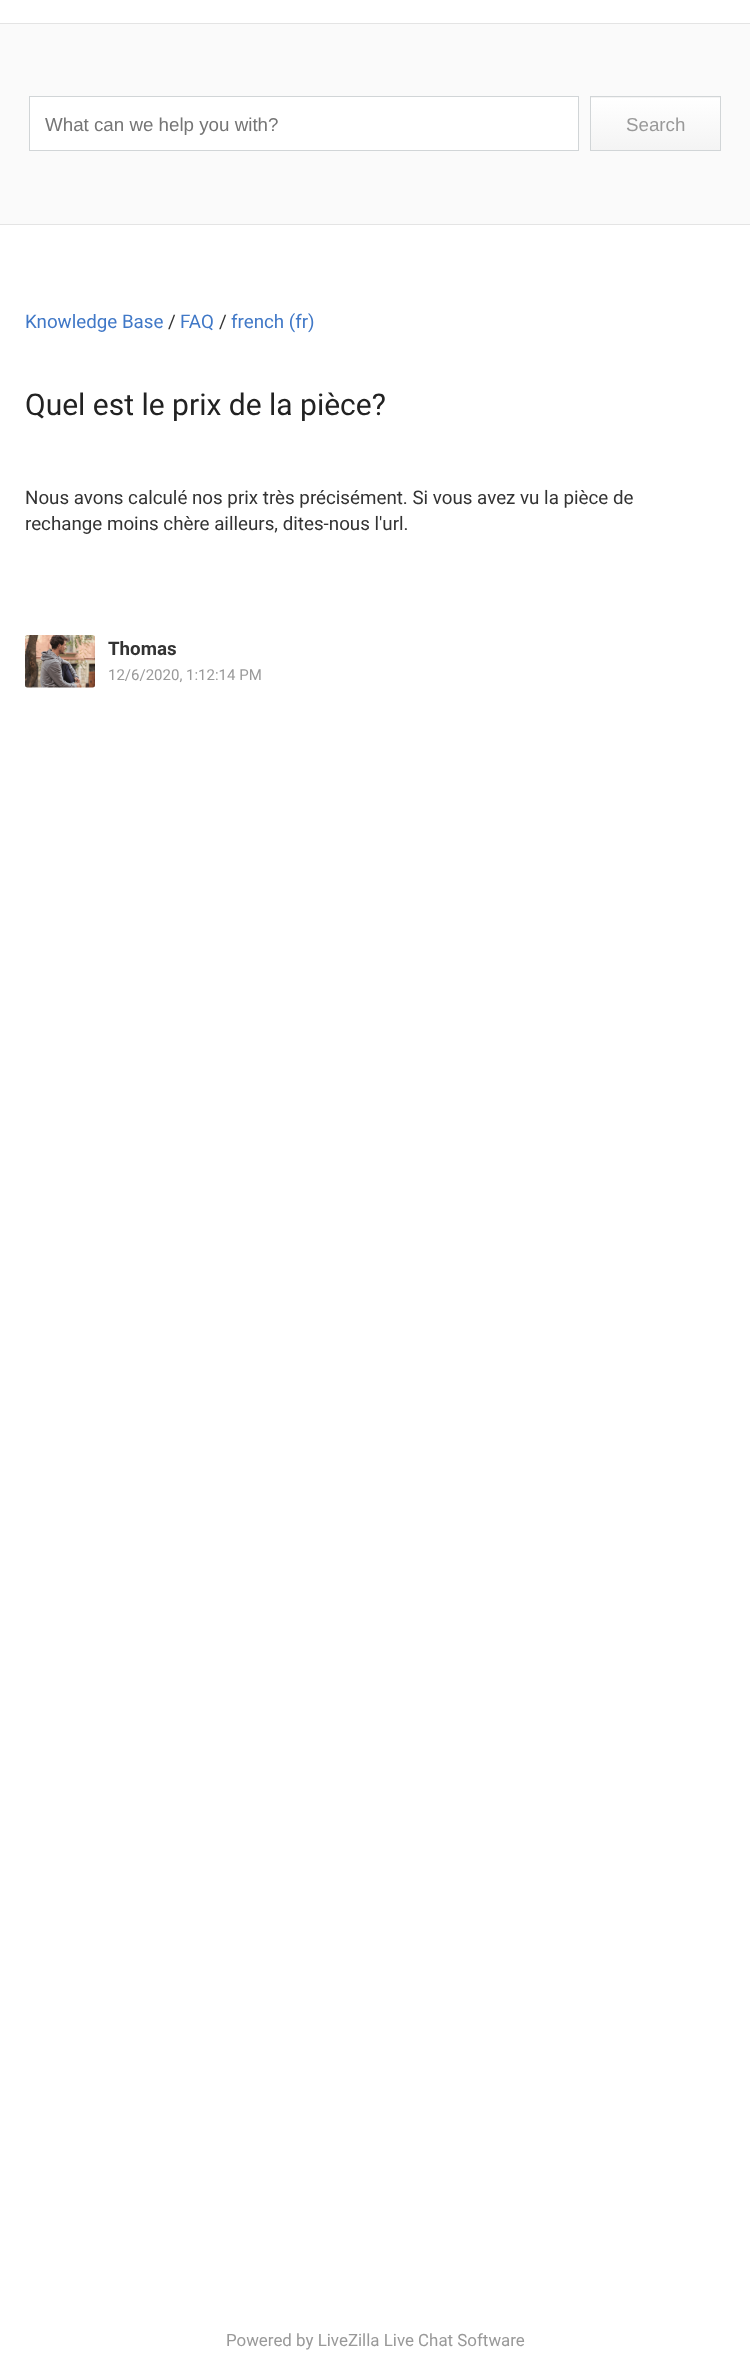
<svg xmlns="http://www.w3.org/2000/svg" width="750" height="2374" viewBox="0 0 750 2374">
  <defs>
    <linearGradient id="g1" gradientUnits="userSpaceOnUse" x1="656" y1="45" x2="656" y2="98"><stop offset="0" stop-color="#ffffff"/><stop offset="1" stop-color="#f4f4f4"/></linearGradient>
    <linearGradient id="g2" gradientUnits="userSpaceOnUse" x1="656" y1="98" x2="656" y2="150"><stop offset="0" stop-color="#ffffff"/><stop offset="1" stop-color="#f4f4f4"/></linearGradient>
  </defs>
  <rect width="100%" height="100%" fill="#ffffff"/>
  <rect x="0" y="24" width="750" height="200" fill="#fafafa"/>
  <rect x="0" y="23" width="750" height="1" fill="#e4e4e4"/>
  <rect x="0" y="224" width="750" height="1" fill="#e4e4e4"/>
  <rect x="29.5" y="96.5" width="549" height="54" fill="#ffffff" stroke="#d1d5d7"/>
  <text x="45" y="131" font-family="Liberation Sans" font-size="18.75" fill="#757575">What can we help you with?</text>
  <rect x="590" y="97" width="131" height="1" fill="url(#g1)"/>
  <rect x="591" y="98" width="129" height="52" fill="url(#g2)"/>
  <rect x="590.5" y="96.5" width="130" height="54" fill="none" stroke="#d1d5d7"/>
  <text x="626" y="131" font-family="Liberation Sans" font-size="18.75" fill="#999999">Search</text>
  <text x="25" y="328" font-family="Roboto" font-size="18.75" fill="#4078c7">Knowledge Base</text>
  <text x="168" y="328" font-family="Roboto" font-size="18.75" fill="#333333">/</text>
  <text x="180" y="328" font-family="Roboto" font-size="18.75" fill="#4078c7">FAQ</text>
  <text x="219" y="328" font-family="Roboto" font-size="18.75" fill="#333333">/</text>
  <text x="231" y="328" font-family="Roboto" font-size="18.75" fill="#4078c7">french (fr)</text>
  <text x="25" y="415" font-family="Roboto" font-size="30" fill="#222222">Quel est le prix de la pièce?</text>
  <text x="25" y="504" font-family="Roboto" font-size="18.75" fill="#333333">Nous avons calculé nos prix très précisément. Si vous avez vu la pièce de</text>
  <text x="25" y="530" font-family="Roboto" font-size="18.75" fill="#333333">rechange moins chère ailleurs, dites-nous l'url.</text>
  <image x="25" y="635" width="70" height="53" href="img1.png"/>
  <text x="108" y="655" font-family="Roboto" font-size="18.75" font-weight="bold" fill="#333333">Thomas</text>
  <text x="108" y="680" font-family="Roboto" font-size="15" fill="#999999">12/6/2020, 1:12:14 PM</text>
  <text x="226" y="2346" font-family="Roboto" font-size="16.9" fill="#999999">Powered by LiveZilla Live Chat Software</text>
</svg>
